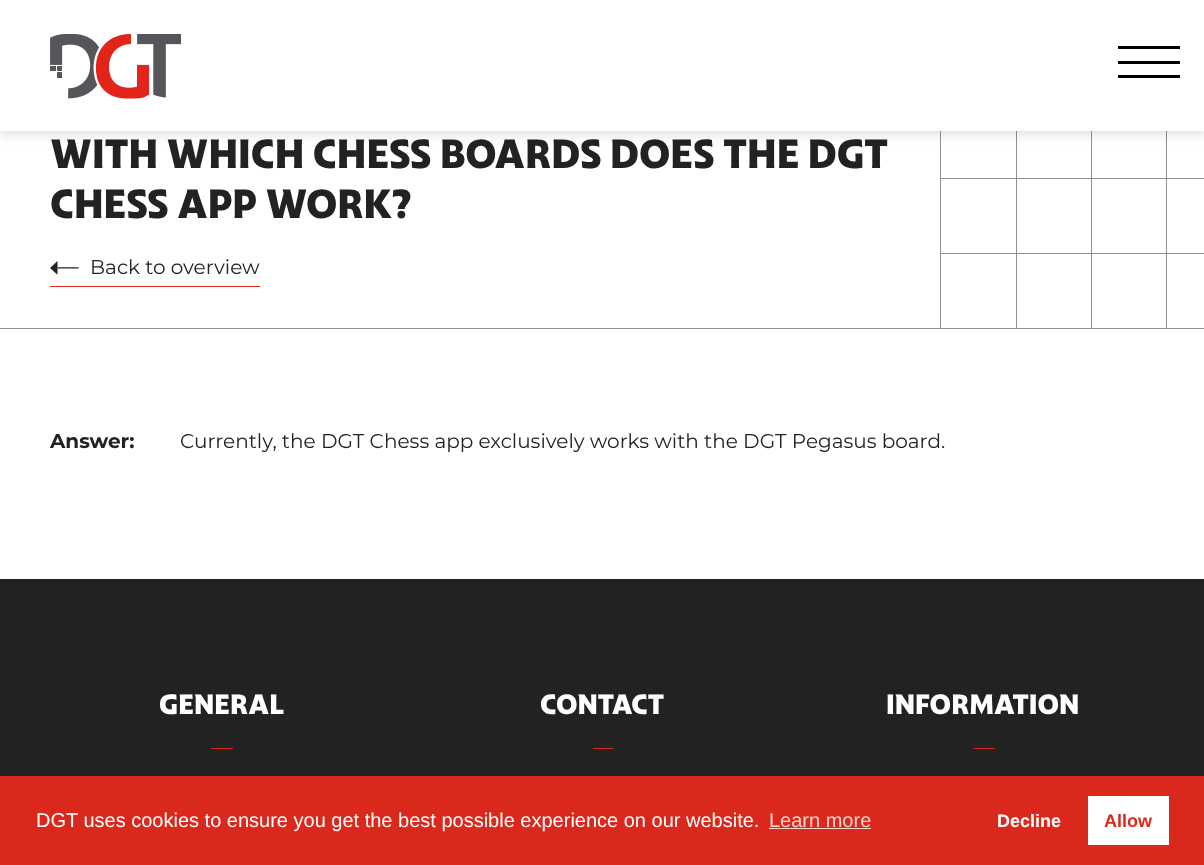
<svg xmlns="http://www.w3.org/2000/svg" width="1204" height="865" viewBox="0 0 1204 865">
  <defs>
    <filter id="blur1" x="-50%" y="-200%" width="200%" height="500%"><feGaussianBlur stdDeviation="5"/></filter>
  </defs>
  <rect width="100%" height="100%" fill="#ffffff"/>
  <rect x="0" y="328" width="1204" height="1" fill="#909090"/>
  <rect x="940" y="131" width="1" height="198" fill="#909090"/>
  <rect x="941" y="178" width="263" height="1" fill="#909090"/>
  <rect x="941" y="253" width="263" height="1" fill="#909090"/>
  <rect x="1016" y="131" width="1" height="198" fill="#909090"/>
  <rect x="1091" y="131" width="1" height="198" fill="#909090"/>
  <rect x="1166" y="131" width="1" height="198" fill="#909090"/>
  <rect x="0" y="5" width="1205" height="131" fill="#000000" fill-opacity="0.1" filter="url(#blur1)"/>
  <rect x="0" y="0" width="1204" height="131" fill="#ffffff"/>
  <image x="50" y="34" width="131" height="65" href="img1.png"/>
  <rect x="1118" y="46" width="62" height="3" fill="#000000"/>
  <rect x="1118" y="61" width="62" height="3" fill="#000000"/>
  <rect x="1118" y="75" width="62" height="3" fill="#000000"/>
  <text x="50" y="168" font-family="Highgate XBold" font-size="40" font-weight="bold" fill="#222222">WITH WHICH CHESS BOARDS DOES THE DGT</text>
  <text x="50" y="218" font-family="Highgate XBold" font-size="40" font-weight="bold" fill="#222222">CHESS APP WORK?</text>
  <rect x="50" y="286" width="210" height="1" fill="#da291c"/>
  <image x="50" y="261" width="29" height="14" href="img2.png"/>
  <text x="90" y="274" font-family="Montserrat" font-size="20" fill="#222222">Back to overview</text>
  <text x="50" y="448" font-family="Montserrat" font-size="20" font-weight="bold" fill="#222222">Answer:</text>
  <text x="180" y="448" font-family="Montserrat" font-size="20" fill="#222222">Currently, the DGT Chess app exclusively works with the DGT Pegasus board.</text>
  <rect x="0" y="579" width="1204" height="197" fill="#222222"/>
  <text x="159" y="714" font-family="Highgate XBold" font-size="27.5" font-weight="bold" fill="#ffffff">GENERAL</text>
  <rect x="211" y="748" width="22" height="1" fill="#da291c"/>
  <text x="540" y="714" font-family="Highgate XBold" font-size="27.5" font-weight="bold" fill="#ffffff">CONTACT</text>
  <rect x="593" y="748" width="21" height="1" fill="#da291c"/>
  <text x="886" y="714" font-family="Highgate XBold" font-size="27.5" font-weight="bold" fill="#ffffff">INFORMATION</text>
  <rect x="974" y="748" width="21" height="1" fill="#da291c"/>
  <rect x="0" y="776" width="1204" height="89" fill="#da291c"/>
  <text x="36" y="827" font-family="Liberation Sans" font-size="20" fill="#ffffff">DGT uses cookies to ensure you get the best possible experience on our website.</text>
  <text x="769" y="827" font-family="Liberation Sans" font-size="20" fill="#f8d4d2">Learn more</text>
  <rect x="769" y="828" width="102" height="1" fill="#f8d4d2"/>
  <text x="997" y="827" font-family="Liberation Sans" font-size="18" font-weight="bold" fill="#ffffff">Decline</text>
  <rect x="1088" y="796" width="81" height="49" fill="#ffffff"/>
  <text x="1104" y="827" font-family="Liberation Sans" font-size="18" font-weight="bold" fill="#da291c">Allow</text>
</svg>
